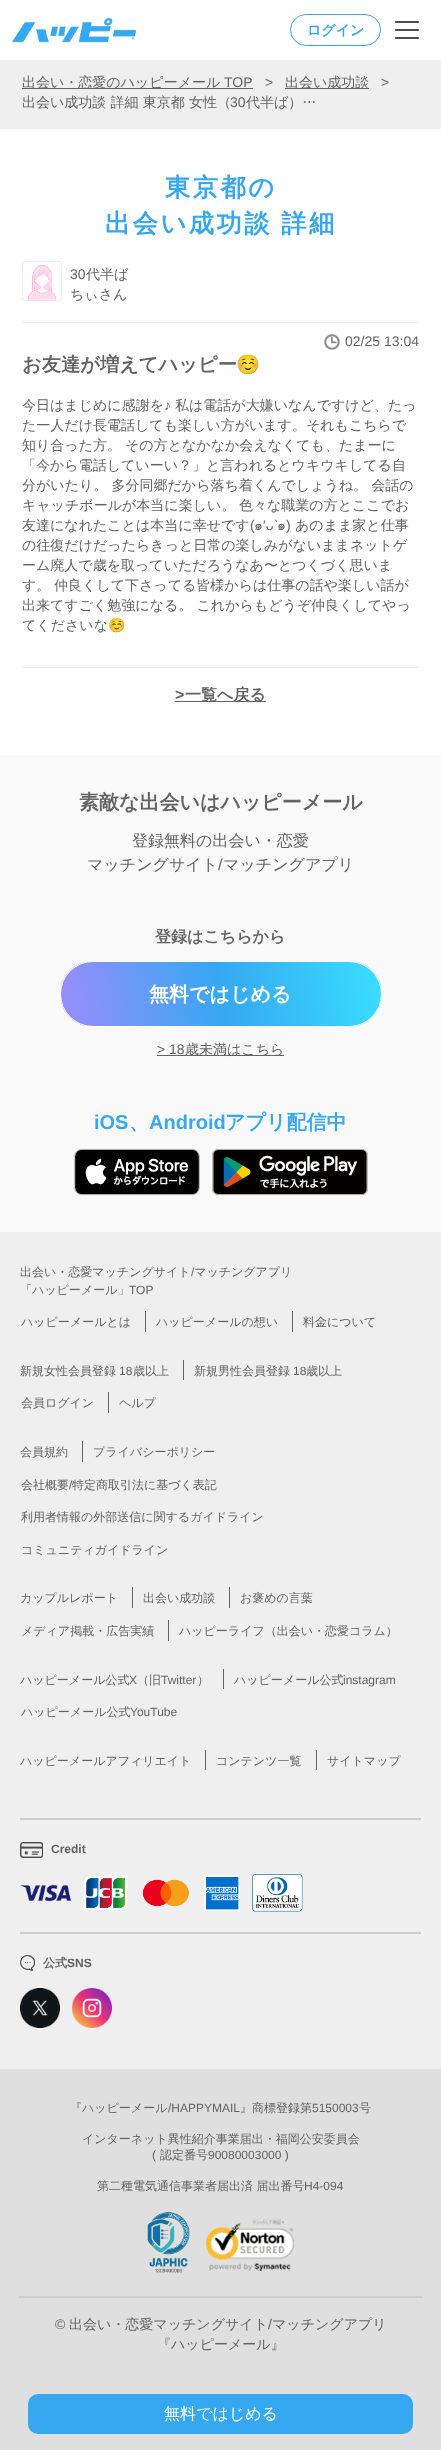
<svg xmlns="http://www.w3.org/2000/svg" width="441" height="2450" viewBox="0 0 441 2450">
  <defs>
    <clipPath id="clip1"><rect x="60" y="961" width="322" height="66" rx="33"/></clipPath>
    <linearGradient id="g1" gradientUnits="userSpaceOnUse" x1="60" y1="1022" x2="382" y2="966"><stop offset="0" stop-color="#9b8cfd"/><stop offset="0.5" stop-color="#36a8f1"/><stop offset="1" stop-color="#3adeff"/></linearGradient>
  </defs>
  <rect width="100%" height="100%" fill="#ffffff"/>
  <image x="12" y="17" width="124" height="26" href="img1.png"/>
  <rect x="290.5" y="14.5" width="90" height="31" rx="15.5" fill="none" stroke="#36a8f1"/>
  <text x="307" y="35" font-family="WenQuanYi Zen Hei" font-size="14" font-weight="bold" fill="#36a8f1">ログイン</text>
  <rect x="395" y="21" width="24" height="2" rx="1" fill="#4d4d4d"/>
  <rect x="395" y="29" width="24" height="2" rx="1" fill="#4d4d4d"/>
  <rect x="395" y="37" width="24" height="2" rx="1" fill="#4d4d4d"/>
  <rect x="0" y="60" width="441" height="69" fill="#efefef"/>
  <rect x="22" y="88" width="231" height="1" fill="#636363"/>
  <text x="22" y="87" font-family="WenQuanYi Zen Hei" font-size="14" font-weight="500" fill="#636363">出会い・恋愛のハッピーメール</text>
  <text x="224" y="87" font-family="Liberation Sans" font-size="14" fill="#636363">TOP</text>
  <text x="265" y="87" font-family="Liberation Sans" font-size="14" fill="#636363">&gt;</text>
  <rect x="285" y="88" width="84" height="1" fill="#636363"/>
  <text x="285" y="87" font-family="WenQuanYi Zen Hei" font-size="14" font-weight="500" fill="#636363">出会い成功談</text>
  <text x="381" y="87" font-family="Liberation Sans" font-size="14" fill="#636363">&gt;</text>
  <text x="22" y="107" font-family="WenQuanYi Zen Hei" font-size="14" font-weight="500" fill="#636363">出会い成功談 詳細 東京都 女性（</text>
  <text x="230" y="107" font-family="Liberation Sans" font-size="14" fill="#636363">30</text>
  <text x="246" y="107" font-family="WenQuanYi Zen Hei" font-size="14" font-weight="500" fill="#636363">代半ば）…</text>
  <text x="165" y="196" font-family="WenQuanYi Zen Hei" font-size="25.25" font-weight="bold" letter-spacing="2.5" fill="#36a8f1">東京都の</text>
  <text x="105" y="232" word-spacing="-1" font-family="WenQuanYi Zen Hei" font-size="25.25" font-weight="bold" letter-spacing="2.5" fill="#36a8f1">出会い成功談 詳細</text>
  <rect x="22" y="322" width="397" height="1" fill="#ededed"/>
  <image x="22" y="261" width="40" height="40" href="img2.png"/>
  <text x="70" y="279" font-family="Liberation Sans" font-size="14" fill="#636363">30</text>
  <text x="86" y="279" font-family="WenQuanYi Zen Hei" font-size="14" font-weight="500" fill="#636363">代半ば</text>
  <text x="70" y="299" font-family="WenQuanYi Zen Hei" font-size="14" font-weight="500" fill="#636363">ちぃさん</text>
  <rect x="22" y="667" width="397" height="1" fill="#ededed"/>
  <image x="324" y="334" width="16" height="16" href="img3.png"/>
  <text x="345" y="346" font-family="Liberation Sans" font-size="14" fill="#636363">02/25 13:04</text>
  <text x="22" y="371" font-family="WenQuanYi Zen Hei" font-size="19.25" font-weight="bold" fill="#636363">お友達が増えてハッピー</text>
  <text x="236" y="371" font-family="Noto Color Emoji" font-size="19.25" font-weight="bold" fill="#636363">☺️</text>
  <text x="22" y="410" font-family="WenQuanYi Zen Hei" font-size="14" font-weight="500" fill="#636363">今日はまじめに感謝を</text>
  <text x="164" y="410" font-family="Liberation Sans" font-size="14" fill="#636363">♪</text>
  <text x="175" y="410" font-family="WenQuanYi Zen Hei" font-size="14" font-weight="500" fill="#636363">私は電話が大嫌いなんですけど、たっ</text>
  <text x="22" y="430" font-family="WenQuanYi Zen Hei" font-size="14" font-weight="500" fill="#636363">た一人だけ長電話しても楽しい方がいます。それもこちらで</text>
  <text x="22" y="450" font-family="WenQuanYi Zen Hei" font-size="14" font-weight="500" fill="#636363">知り合った方。</text>
  <text x="125" y="450" font-family="WenQuanYi Zen Hei" font-size="14" font-weight="500" fill="#636363">その方となかなか会えなくても、たまーに</text>
  <text x="22" y="470" font-family="WenQuanYi Zen Hei" font-size="14" font-weight="500" fill="#636363">「今から電話していーい？」と言われるとウキウキしてる自</text>
  <text x="22" y="490" font-family="WenQuanYi Zen Hei" font-size="14" font-weight="500" fill="#636363">分がいたり。 多分同郷だから落ち着くんでしょうね。 会話の</text>
  <text x="22" y="510" font-family="WenQuanYi Zen Hei" font-size="14" font-weight="500" fill="#636363">キャッチボールが本当に楽しい。</text>
  <text x="239" y="510" font-family="WenQuanYi Zen Hei" font-size="14" font-weight="500" fill="#636363">色々な職業の方とここでお</text>
  <text x="22" y="530" font-family="WenQuanYi Zen Hei" font-size="14" font-weight="500" fill="#636363">友達になれたことは本当に幸せです</text>
  <text x="250" y="530" font-family="Liberation Sans" font-size="14" fill="#636363">(</text>
  <text x="254" y="530" font-family="Loma" font-size="14" fill="#636363">๑</text>
  <text x="263" y="530" font-family="Liberation Sans" font-size="14" fill="#636363">′ᴗ</text>
  <text x="274" y="530" font-family="WenQuanYi Zen Hei" font-size="14" font-weight="500" fill="#636363">‵</text>
  <text x="277" y="530" font-family="Loma" font-size="14" fill="#636363">๑</text>
  <text x="286" y="530" font-family="Liberation Sans" font-size="14" fill="#636363">)</text>
  <text x="295" y="530" font-family="WenQuanYi Zen Hei" font-size="14" font-weight="500" fill="#636363">あのまま家と仕事</text>
  <text x="22" y="550" font-family="WenQuanYi Zen Hei" font-size="14" font-weight="500" fill="#636363">の往復だけだったらきっと日常の楽しみがないままネットゲ</text>
  <text x="22" y="570" font-family="WenQuanYi Zen Hei" font-size="14" font-weight="500" fill="#636363">ーム廃人で歳を取っていただろうなあ〜とつくづく思いま</text>
  <text x="22" y="590" font-family="WenQuanYi Zen Hei" font-size="14" font-weight="500" fill="#636363">す。</text>
  <text x="54" y="590" font-family="WenQuanYi Zen Hei" font-size="14" font-weight="500" fill="#636363">仲良くして下さってる皆様からは仕事の話や楽しい話が</text>
  <text x="22" y="610" font-family="WenQuanYi Zen Hei" font-size="14" font-weight="500" fill="#636363">出来てすごく勉強になる。 これからもどうぞ仲良くしてやっ</text>
  <text x="22" y="630" font-family="WenQuanYi Zen Hei" font-size="14" font-weight="500" fill="#636363">てくださいな</text>
  <text x="108" y="630" font-family="Noto Color Emoji" font-size="14" fill="#636363">☺️</text>
  <text x="175" y="700" font-family="Liberation Sans" font-size="16" font-weight="bold" fill="#636363">&gt;</text>
  <rect x="175" y="701" width="91" height="1" fill="#636363"/>
  <text x="185" y="700" font-family="WenQuanYi Zen Hei" font-size="16" font-weight="bold" fill="#636363">一覧へ戻る</text>
  <rect x="0" y="755" width="441" height="477" fill="#f9f9f9"/>
  <text x="79" y="809" font-family="WenQuanYi Zen Hei" font-size="20" font-weight="bold" fill="#636363">素敵な出会いはハッピーメール</text>
  <text x="132" y="846" font-family="WenQuanYi Zen Hei" font-size="16" font-weight="500" fill="#636363">登録無料の出会い・恋愛</text>
  <text x="87" y="870" font-family="WenQuanYi Zen Hei" font-size="16" font-weight="500" fill="#636363">マッチングサイト</text>
  <text x="218" y="870" font-family="Liberation Sans" font-size="16" fill="#636363">/</text>
  <text x="223" y="870" font-family="WenQuanYi Zen Hei" font-size="16" font-weight="500" fill="#636363">マッチングアプリ</text>
  <text x="155" y="942" font-family="WenQuanYi Zen Hei" font-size="16" font-weight="bold" fill="#636363">登録はこちらから</text>
  <g clip-path="url(#clip1)">
    <rect x="61" y="962" width="320" height="64" fill="url(#g1)"/>
  </g>
  <rect x="60.5" y="961.5" width="321" height="65" rx="32.5" fill="none" stroke="#ffffff"/>
  <text x="149" y="1001" font-family="WenQuanYi Zen Hei" font-size="20" font-weight="bold" fill="#ffffff">無料ではじめる</text>
  <text x="157" y="1054" font-family="Liberation Sans" font-size="14" fill="#636363">&gt; 18</text>
  <rect x="157" y="1055" width="127" height="1" fill="#636363"/>
  <text x="185" y="1054" font-family="WenQuanYi Zen Hei" font-size="14" font-weight="500" fill="#636363">歳未満はこちら</text>
  <text x="94" y="1129" font-family="Liberation Sans" font-size="20" font-weight="bold" fill="#36a8f1">iOS</text>
  <text x="129" y="1129" font-family="WenQuanYi Zen Hei" font-size="20" font-weight="bold" fill="#36a8f1">、</text>
  <text x="149" y="1129" font-family="Liberation Sans" font-size="20" font-weight="bold" fill="#36a8f1">Android</text>
  <text x="225" y="1129" font-family="WenQuanYi Zen Hei" font-size="20" font-weight="bold" fill="#36a8f1">アプリ配信中</text>
  <image x="74" y="1149" width="126" height="46" href="img4.png"/>
  <image x="212" y="1149" width="156" height="46" href="img5.png"/>
  <rect x="0" y="1232" width="441" height="837" fill="#efefef"/>
  <text x="20" y="1276" font-family="WenQuanYi Zen Hei" font-size="12" font-weight="500" fill="#636363">出会い・恋愛マッチングサイト マッチングアプリ</text>
  <text x="191" y="1276" font-family="Liberation Sans" font-size="12" fill="#636363">/</text>
  <text x="20" y="1294" font-family="WenQuanYi Zen Hei" font-size="12" font-weight="500" fill="#636363">「ハッピーメール」</text>
  <text x="129" y="1294" font-family="Liberation Sans" font-size="12" fill="#636363">TOP</text>
  <text x="21" y="1326" font-family="WenQuanYi Zen Hei" font-size="12" font-weight="500" fill="#636363">ハッピーメールとは</text>
  <rect x="145" y="1311" width="1" height="21" fill="#636363"/>
  <text x="156" y="1326" font-family="WenQuanYi Zen Hei" font-size="12" font-weight="500" fill="#636363">ハッピーメールの想い</text>
  <rect x="292" y="1311" width="1" height="21" fill="#636363"/>
  <text x="303" y="1326" font-family="WenQuanYi Zen Hei" font-size="12" font-weight="500" fill="#636363">料金について</text>
  <text x="20" y="1375" font-family="WenQuanYi Zen Hei" font-size="12" font-weight="500" fill="#636363">新規女性会員登録</text>
  <text x="119" y="1375" font-family="Liberation Sans" font-size="12" fill="#636363">18</text>
  <text x="133" y="1375" font-family="WenQuanYi Zen Hei" font-size="12" font-weight="500" fill="#636363">歳以上</text>
  <rect x="183" y="1360" width="1" height="20" fill="#636363"/>
  <text x="194" y="1375" font-family="WenQuanYi Zen Hei" font-size="12" font-weight="500" fill="#636363">新規男性会員登録</text>
  <text x="293" y="1375" font-family="Liberation Sans" font-size="12" fill="#636363">18</text>
  <text x="306" y="1375" font-family="WenQuanYi Zen Hei" font-size="12" font-weight="500" fill="#636363">歳以上</text>
  <text x="21" y="1407" font-family="WenQuanYi Zen Hei" font-size="12" font-weight="500" fill="#636363">会員ログイン</text>
  <rect x="108" y="1392" width="1" height="21" fill="#636363"/>
  <text x="119" y="1407" font-family="WenQuanYi Zen Hei" font-size="12" font-weight="500" fill="#636363">ヘルプ</text>
  <text x="20" y="1456" font-family="WenQuanYi Zen Hei" font-size="12" font-weight="500" fill="#636363">会員規約</text>
  <rect x="82" y="1441" width="1" height="21" fill="#636363"/>
  <text x="93" y="1456" font-family="WenQuanYi Zen Hei" font-size="12" font-weight="500" fill="#636363">プライバシーポリシー</text>
  <text x="21" y="1489" font-family="WenQuanYi Zen Hei" font-size="12" font-weight="500" fill="#636363">会社概要</text>
  <text x="69" y="1489" font-family="Liberation Sans" font-size="12" fill="#636363">/</text>
  <text x="72" y="1489" font-family="WenQuanYi Zen Hei" font-size="12" font-weight="500" fill="#636363">特定商取引法に基づく表記</text>
  <text x="21" y="1521" font-family="WenQuanYi Zen Hei" font-size="12" font-weight="500" fill="#636363">利用者情報の外部送信に関するガイドライン</text>
  <text x="21" y="1554" font-family="WenQuanYi Zen Hei" font-size="12" font-weight="500" fill="#636363">コミュニティガイドライン</text>
  <text x="20" y="1602" font-family="WenQuanYi Zen Hei" font-size="12" font-weight="500" fill="#636363">カップルレポート</text>
  <rect x="132" y="1587" width="1" height="21" fill="#636363"/>
  <text x="143" y="1602" font-family="WenQuanYi Zen Hei" font-size="12" font-weight="500" fill="#636363">出会い成功談</text>
  <rect x="229" y="1587" width="1" height="21" fill="#636363"/>
  <text x="240" y="1602" font-family="WenQuanYi Zen Hei" font-size="12" font-weight="500" fill="#636363">お褒めの言葉</text>
  <text x="21" y="1635" font-family="WenQuanYi Zen Hei" font-size="12" font-weight="500" fill="#636363">メディア掲載・広告実績</text>
  <rect x="168" y="1620" width="1" height="21" fill="#636363"/>
  <text x="179" y="1635" font-family="WenQuanYi Zen Hei" font-size="12" font-weight="500" fill="#636363">ハッピーライフ（出会い・恋愛コラム）</text>
  <text x="20" y="1684" font-family="WenQuanYi Zen Hei" font-size="12" font-weight="500" fill="#636363">ハッピーメール公式</text>
  <text x="129" y="1684" font-family="Liberation Sans" font-size="12" fill="#636363">X</text>
  <text x="137" y="1684" font-family="WenQuanYi Zen Hei" font-size="12" font-weight="500" fill="#636363">（旧</text>
  <text x="161" y="1684" font-family="Liberation Sans" font-size="12" fill="#636363">Twitter</text>
  <text x="197" y="1684" font-family="WenQuanYi Zen Hei" font-size="12" font-weight="500" fill="#636363">）</text>
  <rect x="223" y="1669" width="1" height="20" fill="#636363"/>
  <text x="234" y="1684" font-family="WenQuanYi Zen Hei" font-size="12" font-weight="500" fill="#636363">ハッピーメール公式</text>
  <text x="343" y="1684" font-family="Liberation Sans" font-size="12" fill="#636363">instagram</text>
  <text x="21" y="1716" font-family="WenQuanYi Zen Hei" font-size="12" font-weight="500" fill="#636363">ハッピーメール公式</text>
  <text x="130" y="1716" font-family="Liberation Sans" font-size="12" fill="#636363">YouTube</text>
  <text x="20" y="1765" font-family="WenQuanYi Zen Hei" font-size="12" font-weight="500" fill="#636363">ハッピーメールアフィリエイト</text>
  <rect x="205" y="1750" width="1" height="20" fill="#636363"/>
  <text x="216" y="1765" font-family="WenQuanYi Zen Hei" font-size="12" font-weight="500" fill="#636363">コンテンツ一覧</text>
  <rect x="316" y="1750" width="1" height="20" fill="#636363"/>
  <text x="327" y="1765" font-family="WenQuanYi Zen Hei" font-size="12" font-weight="500" fill="#636363">サイトマップ</text>
  <rect x="20" y="1818" width="401" height="2" fill="#cecece"/>
  <image x="20" y="1842" width="23" height="16" href="img6.png"/>
  <text x="51" y="1853" font-family="Liberation Sans" font-size="12" font-weight="bold" fill="#636363">Credit</text>
  <image x="20" y="1884" width="51" height="18" href="img7.png"/>
  <image x="84" y="1876" width="44" height="34" href="img8.png"/>
  <image x="142" y="1879" width="47" height="28" href="img9.png"/>
  <image x="204" y="1875" width="36" height="36" href="img10.png"/>
  <image x="252" y="1874" width="51" height="38" href="img11.png"/>
  <rect x="20" y="1932" width="401" height="2" fill="#cecece"/>
  <image x="20" y="1955" width="15" height="16" href="img12.png"/>
  <text x="43" y="1967" font-family="WenQuanYi Zen Hei" font-size="12" font-weight="bold" fill="#636363">公式</text>
  <text x="67" y="1967" font-family="Liberation Sans" font-size="12" font-weight="bold" fill="#636363">SNS</text>
  <image x="20" y="1988" width="40" height="40" href="img13.png"/>
  <image x="72" y="1988" width="40" height="40" href="img14.png"/>
  <rect x="0" y="2069" width="441" height="381" fill="#dfdfdf"/>
  <text x="70" y="2112" font-family="WenQuanYi Zen Hei" font-size="12" font-weight="500" fill="#636363">『ハッピーメール</text>
  <text x="168" y="2112" font-family="Liberation Sans" font-size="12" fill="#636363">/HAPPYMAIL</text>
  <text x="240" y="2112" font-family="WenQuanYi Zen Hei" font-size="12" font-weight="500" fill="#636363">』商標登録第</text>
  <text x="312" y="2112" font-family="Liberation Sans" font-size="12" fill="#636363">5150003</text>
  <text x="359" y="2112" font-family="WenQuanYi Zen Hei" font-size="12" font-weight="500" fill="#636363">号</text>
  <text x="82" y="2143" font-family="WenQuanYi Zen Hei" font-size="12" font-weight="500" fill="#636363">インターネット異性紹介事業届出・福岡公安委員会</text>
  <text x="152" y="2159" font-family="Liberation Sans" font-size="12" fill="#636363">(</text>
  <text x="160" y="2159" font-family="WenQuanYi Zen Hei" font-size="12" font-weight="500" fill="#636363">認定番号</text>
  <text x="208" y="2159" font-family="Liberation Sans" font-size="12" fill="#636363">90080003000 )</text>
  <text x="97" y="2190" font-family="WenQuanYi Zen Hei" font-size="12" font-weight="500" fill="#636363">第二種電気通信事業者届出済 届出番号</text>
  <text x="304" y="2190" font-family="Liberation Sans" font-size="12" fill="#636363">H4-094</text>
  <image x="147" y="2212" width="43" height="61" href="img15.png"/>
  <image x="206" y="2219" width="88" height="52" href="img16.png"/>
  <rect x="19" y="2296" width="403" height="2" fill="#cecece"/>
  <text x="55" y="2329" font-family="Liberation Sans" font-size="14" fill="#636363">©</text>
  <text x="69" y="2329" font-family="WenQuanYi Zen Hei" font-size="14" font-weight="500" fill="#636363">出会い・恋愛マッチングサイト</text>
  <text x="268" y="2329" font-family="Liberation Sans" font-size="14" fill="#636363">/</text>
  <text x="272" y="2329" font-family="WenQuanYi Zen Hei" font-size="14" font-weight="500" fill="#636363">マッチングアプリ</text>
  <text x="157" y="2349" font-family="WenQuanYi Zen Hei" font-size="14" font-weight="500" fill="#636363">『ハッピーメール』</text>
  <rect x="28" y="2394" width="385" height="40" rx="10" fill="#36a8f1"/>
  <text x="164" y="2419" font-family="WenQuanYi Zen Hei" font-size="16" font-weight="500" fill="#ffffff">無料ではじめる</text>
</svg>
